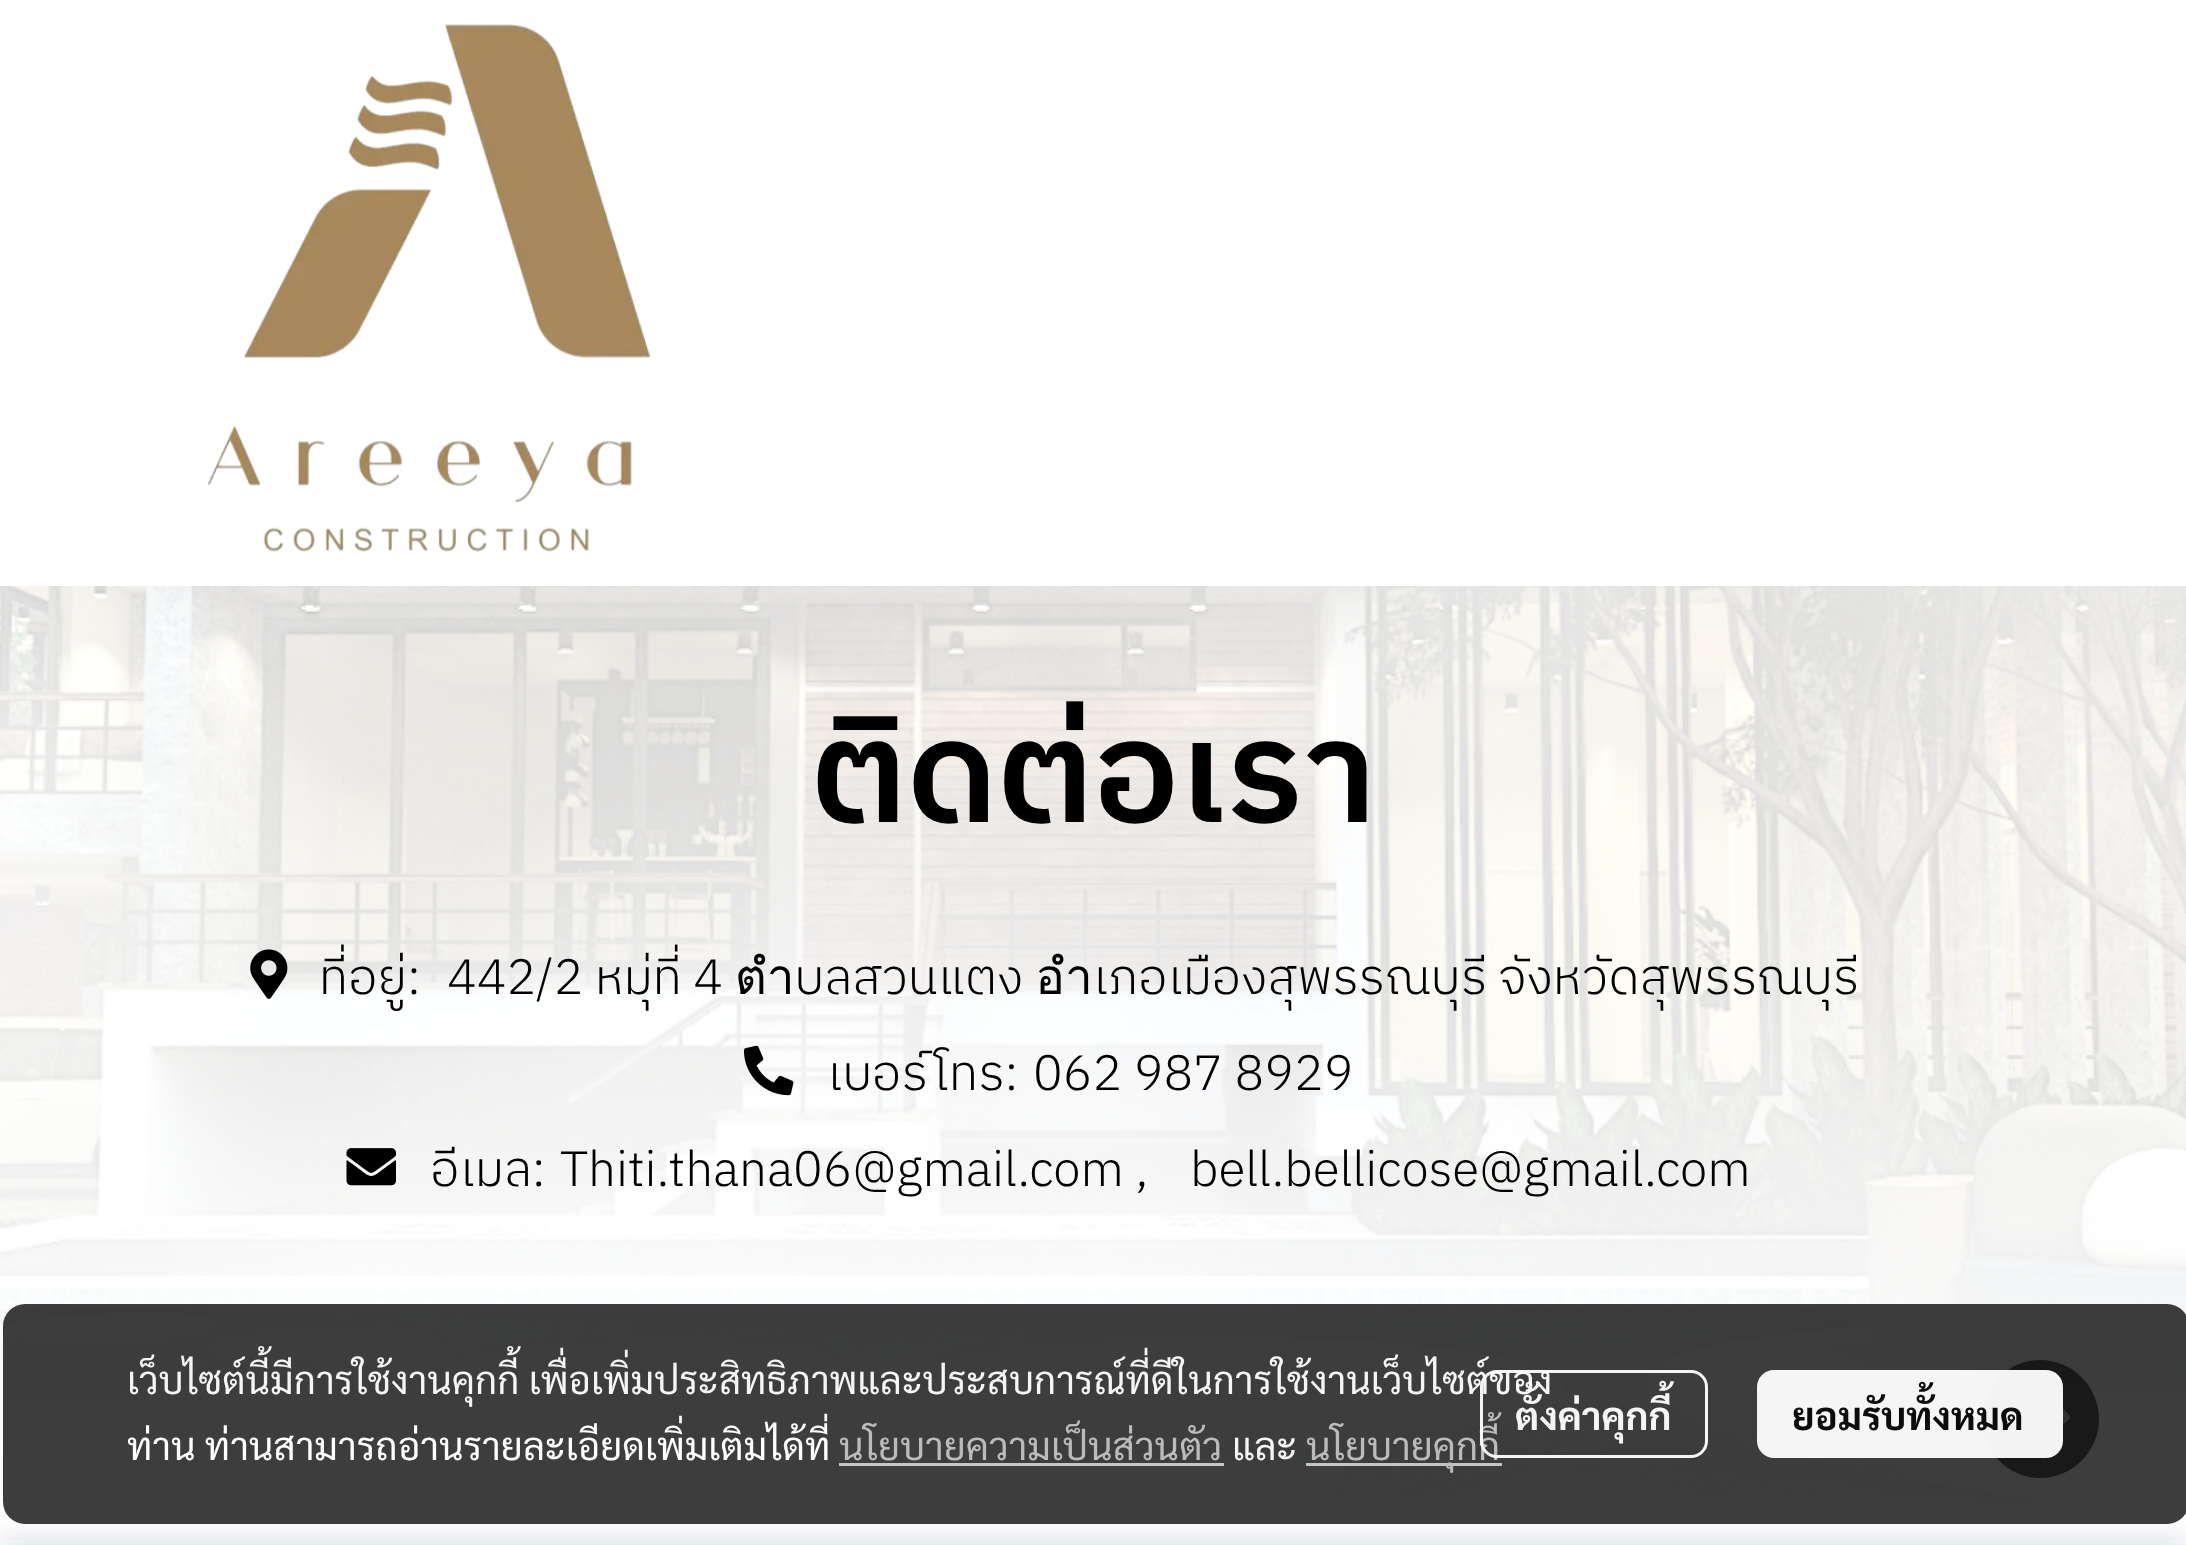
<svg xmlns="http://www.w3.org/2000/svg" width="2186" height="1545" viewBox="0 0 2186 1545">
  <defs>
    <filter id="blur1" x="-50%" y="-200%" width="200%" height="500%"><feGaussianBlur stdDeviation="14"/></filter>
  </defs>
  <rect width="100%" height="100%" fill="#ffffff"/>
  <image x="0" y="586" width="2186" height="918" href="img1.png"/>
  <image x="207" y="24" width="444" height="528" href="img2.png"/>
  <text x="811" y="822" font-family="IBM Plex Sans Thai" font-size="143" font-weight="600" fill="#000000">ติดต่อเรา</text>
  <image x="250" y="949" width="38" height="50" href="img3.png"/>
  <text x="319" y="994" font-family="IBM Plex Sans Thai" font-size="49.5" font-weight="300" fill="#000000">ที่อยู่:</text>
  <text x="447" y="994" font-family="IBM Plex Sans Thai" font-size="49.5" font-weight="300" fill="#000000">442/2 หมุ่ที่ 4 ตำบลสวนแตง อำเภอเมืองสุพรรณบุรี จังหวัดสุพรรณบุรี</text>
  <image x="743" y="1045" width="51" height="51" href="img4.png"/>
  <text x="827" y="1090" font-family="IBM Plex Sans Thai" font-size="49.5" font-weight="300" fill="#000000">เบอร์โทร:</text>
  <text x="1033" y="1090" font-family="IBM Plex Sans Thai" font-size="49.5" font-weight="300" fill="#000000">062 987 8929</text>
  <image x="346" y="1148" width="50" height="38" href="img5.png"/>
  <text x="430" y="1186" font-family="IBM Plex Sans Thai" font-size="49.5" font-weight="300" fill="#000000">อีเมล:</text>
  <text x="560" y="1186" font-family="IBM Plex Sans Thai" font-size="49.5" font-weight="300" fill="#000000">Thiti.thana06@gmail.com ,</text>
  <text x="1190" y="1186" font-family="IBM Plex Sans Thai" font-size="49.5" font-weight="300" fill="#000000">bell.bellicose@gmail.com</text>
  <path d="M2040 1360C2008 1360 1982 1387 1982 1419C1982 1451 2008 1478 2040 1478C2073 1478 2099 1451 2099 1419C2099 1387 2073 1360 2040 1360Z" fill="#2b2a2a" fill-opacity="0.7"/>
  <image x="2011" y="1387" width="59" height="62" href="img6.png"/>
  <rect x="0" y="1540" width="2186" height="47" fill="#00354a" fill-opacity="0.15" filter="url(#blur1)"/>
  <rect x="3" y="1304" width="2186" height="220" rx="22" fill="#000000" fill-opacity="0.76"/>
  <text x="127" y="1394" font-family="Sarabun" font-size="38.5" fill="#f5f5f5">เว็บไซต์นี้มีการใช้งานคุกกี้ เพื่อเพิ่มประสิทธิภาพและประสบการณ์ที่ดีในการใช้งานเว็บไซต์ของ</text>
  <text x="127" y="1460" font-family="Sarabun" font-size="38.5" fill="#ffffff">ท่าน ท่านสามารถอ่านรายละเอียดเพิ่มเติมได้ที่</text>
  <text x="839" y="1460" font-family="Sarabun" font-size="38.5" fill="#bbbbbb">นโยบายความเป็นส่วนตัว</text>
  <text x="1232" y="1460" font-family="Sarabun" font-size="38.5" fill="#f5f5f5">และ</text>
  <rect x="839" y="1463" width="385" height="3" fill="#c5c5c5"/>
  <rect x="1306" y="1463" width="196" height="3" fill="#c5c5c5"/>
  <text x="1306" y="1460" font-family="Sarabun" font-size="38.5" fill="#bbbbbb">นโยบายคุกกี้</text>
  <rect x="1481.5" y="1371.5" width="225" height="85" rx="15.5" fill="none" stroke="#ffffff" stroke-opacity="0.95" stroke-width="3"/>
  <text x="1515" y="1430" font-family="Sarabun" font-size="38.5" font-weight="bold" fill="#f5f5f5">ตั้งค่าคุกกี้</text>
  <rect x="1757" y="1370" width="306" height="88" rx="17" fill="#ffffff" fill-opacity="0.95"/>
  <text x="1792" y="1430" font-family="Sarabun" font-size="38.5" font-weight="bold" fill="#0c0c0c">ยอมรับทั้งหมด</text>
</svg>
